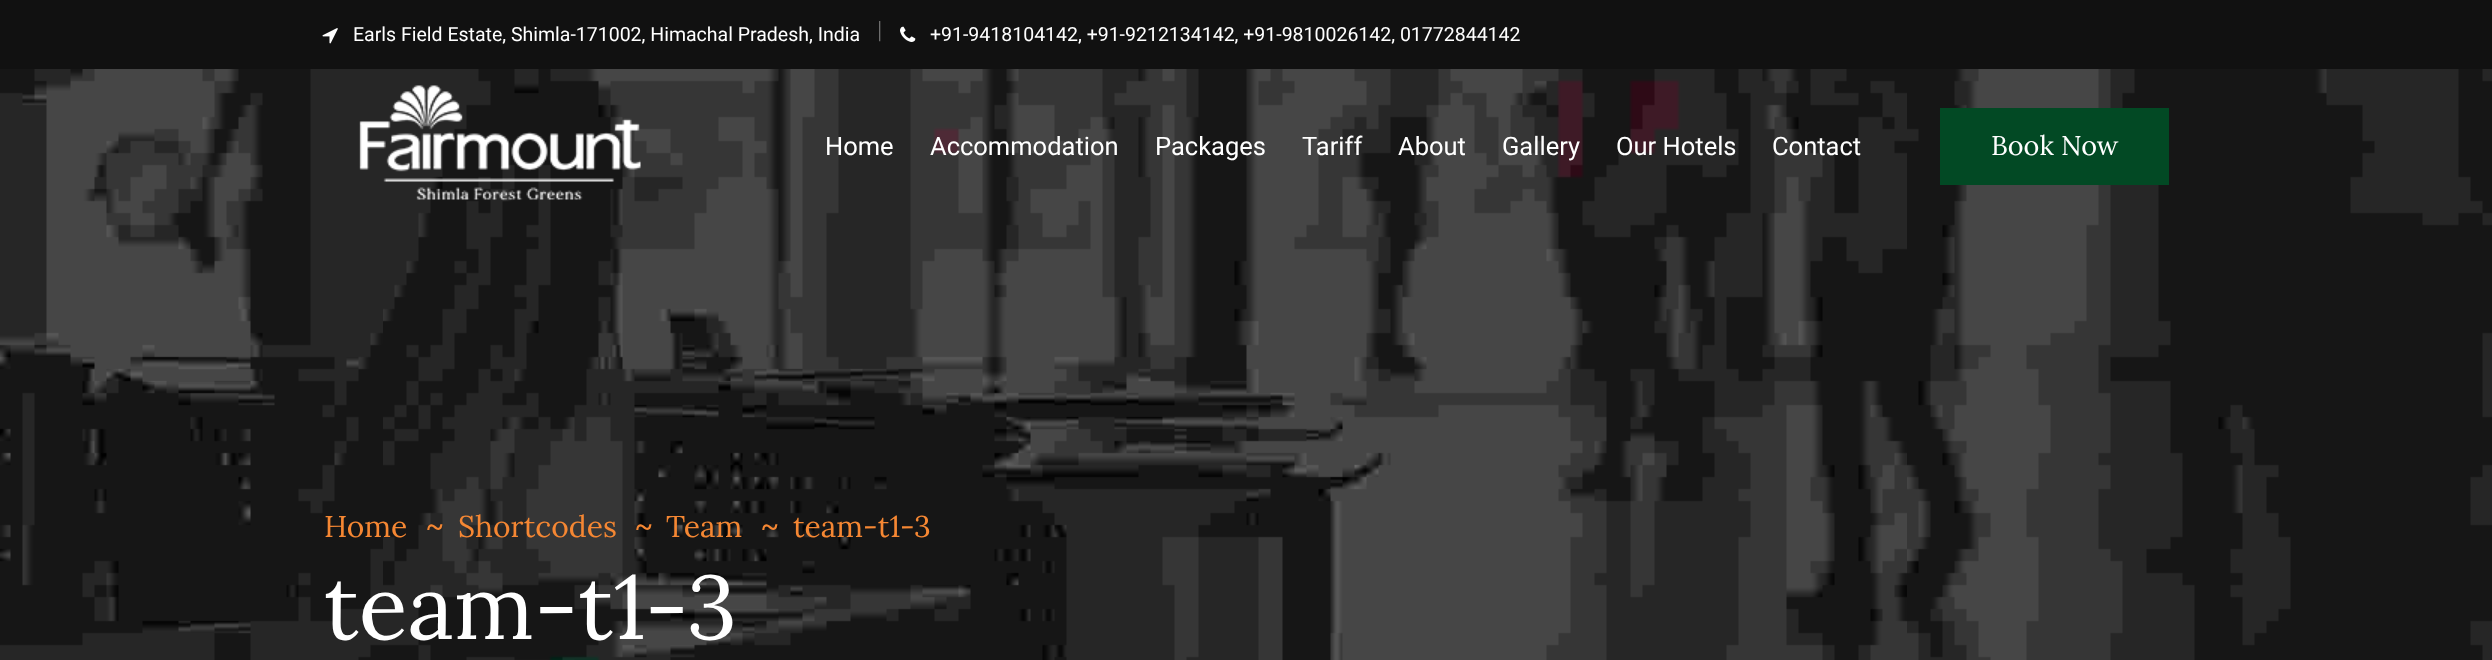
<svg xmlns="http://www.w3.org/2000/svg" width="2492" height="660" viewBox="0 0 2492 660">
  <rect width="100%" height="100%" fill="#ffffff"/>
  <rect x="0" y="0" width="2492" height="69" fill="#111111"/>
  <image x="322" y="28" width="16" height="16" href="img1.png"/>
  <text x="353" y="41" font-family="Roboto" font-size="19.5" fill="#ffffff">Earls Field Estate, Shimla-171002, Himachal Pradesh, India</text>
  <text x="877" y="38" font-family="Roboto" font-size="24" font-weight="300" fill="#777777">|</text>
  <image x="900" y="26" width="16" height="16" href="img2.png"/>
  <text x="930" y="41" font-family="Roboto" font-size="19.5" fill="#ffffff">+91-9418104142, +91-9212134142, +91-9810026142, 01772844142</text>
  <image x="0" y="69" width="2492" height="591" href="img4.png"/>
  <image x="359" y="85" width="282" height="115" href="img3.png"/>
  <text x="825" y="155" font-family="Roboto" font-size="25.5" fill="#ffffff">Home</text>
  <text x="930" y="155" font-family="Roboto" font-size="25.5" fill="#ffffff">Accommodation</text>
  <text x="1155" y="155" font-family="Roboto" font-size="25.5" fill="#ffffff">Packages</text>
  <text x="1302" y="155" font-family="Roboto" font-size="25.5" fill="#ffffff">Tariff</text>
  <text x="1398" y="155" font-family="Roboto" font-size="25.5" fill="#ffffff">About</text>
  <text x="1502" y="155" font-family="Roboto" font-size="25.5" fill="#ffffff">Gallery</text>
  <text x="1616" y="155" font-family="Roboto" font-size="25.5" fill="#ffffff">Our Hotels</text>
  <text x="1772" y="155" font-family="Roboto" font-size="25.5" fill="#ffffff">Contact</text>
  <rect x="1940" y="108" width="229" height="77" fill="#024924"/>
  <text x="1991" y="155" font-family="Lora" font-size="27" fill="#ffffff">Book Now</text>
  <text x="324" y="537" font-family="Lora" font-size="30" fill="#f58733">Home</text>
  <text x="427" y="537" font-family="Liberation Serif" font-size="30" font-weight="bold" fill="#f58733">~</text>
  <text x="458" y="537" font-family="Lora" font-size="30" fill="#f58733">Shortcodes</text>
  <text x="636" y="537" font-family="Liberation Serif" font-size="30" font-weight="bold" fill="#f58733">~</text>
  <text x="666" y="537" font-family="Lora" font-size="30" fill="#f58733">Team</text>
  <text x="762" y="537" font-family="Liberation Serif" font-size="30" font-weight="bold" fill="#f58733">~</text>
  <text x="793" y="537" font-family="Lora" font-size="30" fill="#f58733">team-t1-3</text>
  <text x="324" y="639" font-family="Lora" font-size="90" fill="#ffffff">team-t1-3</text>
</svg>
